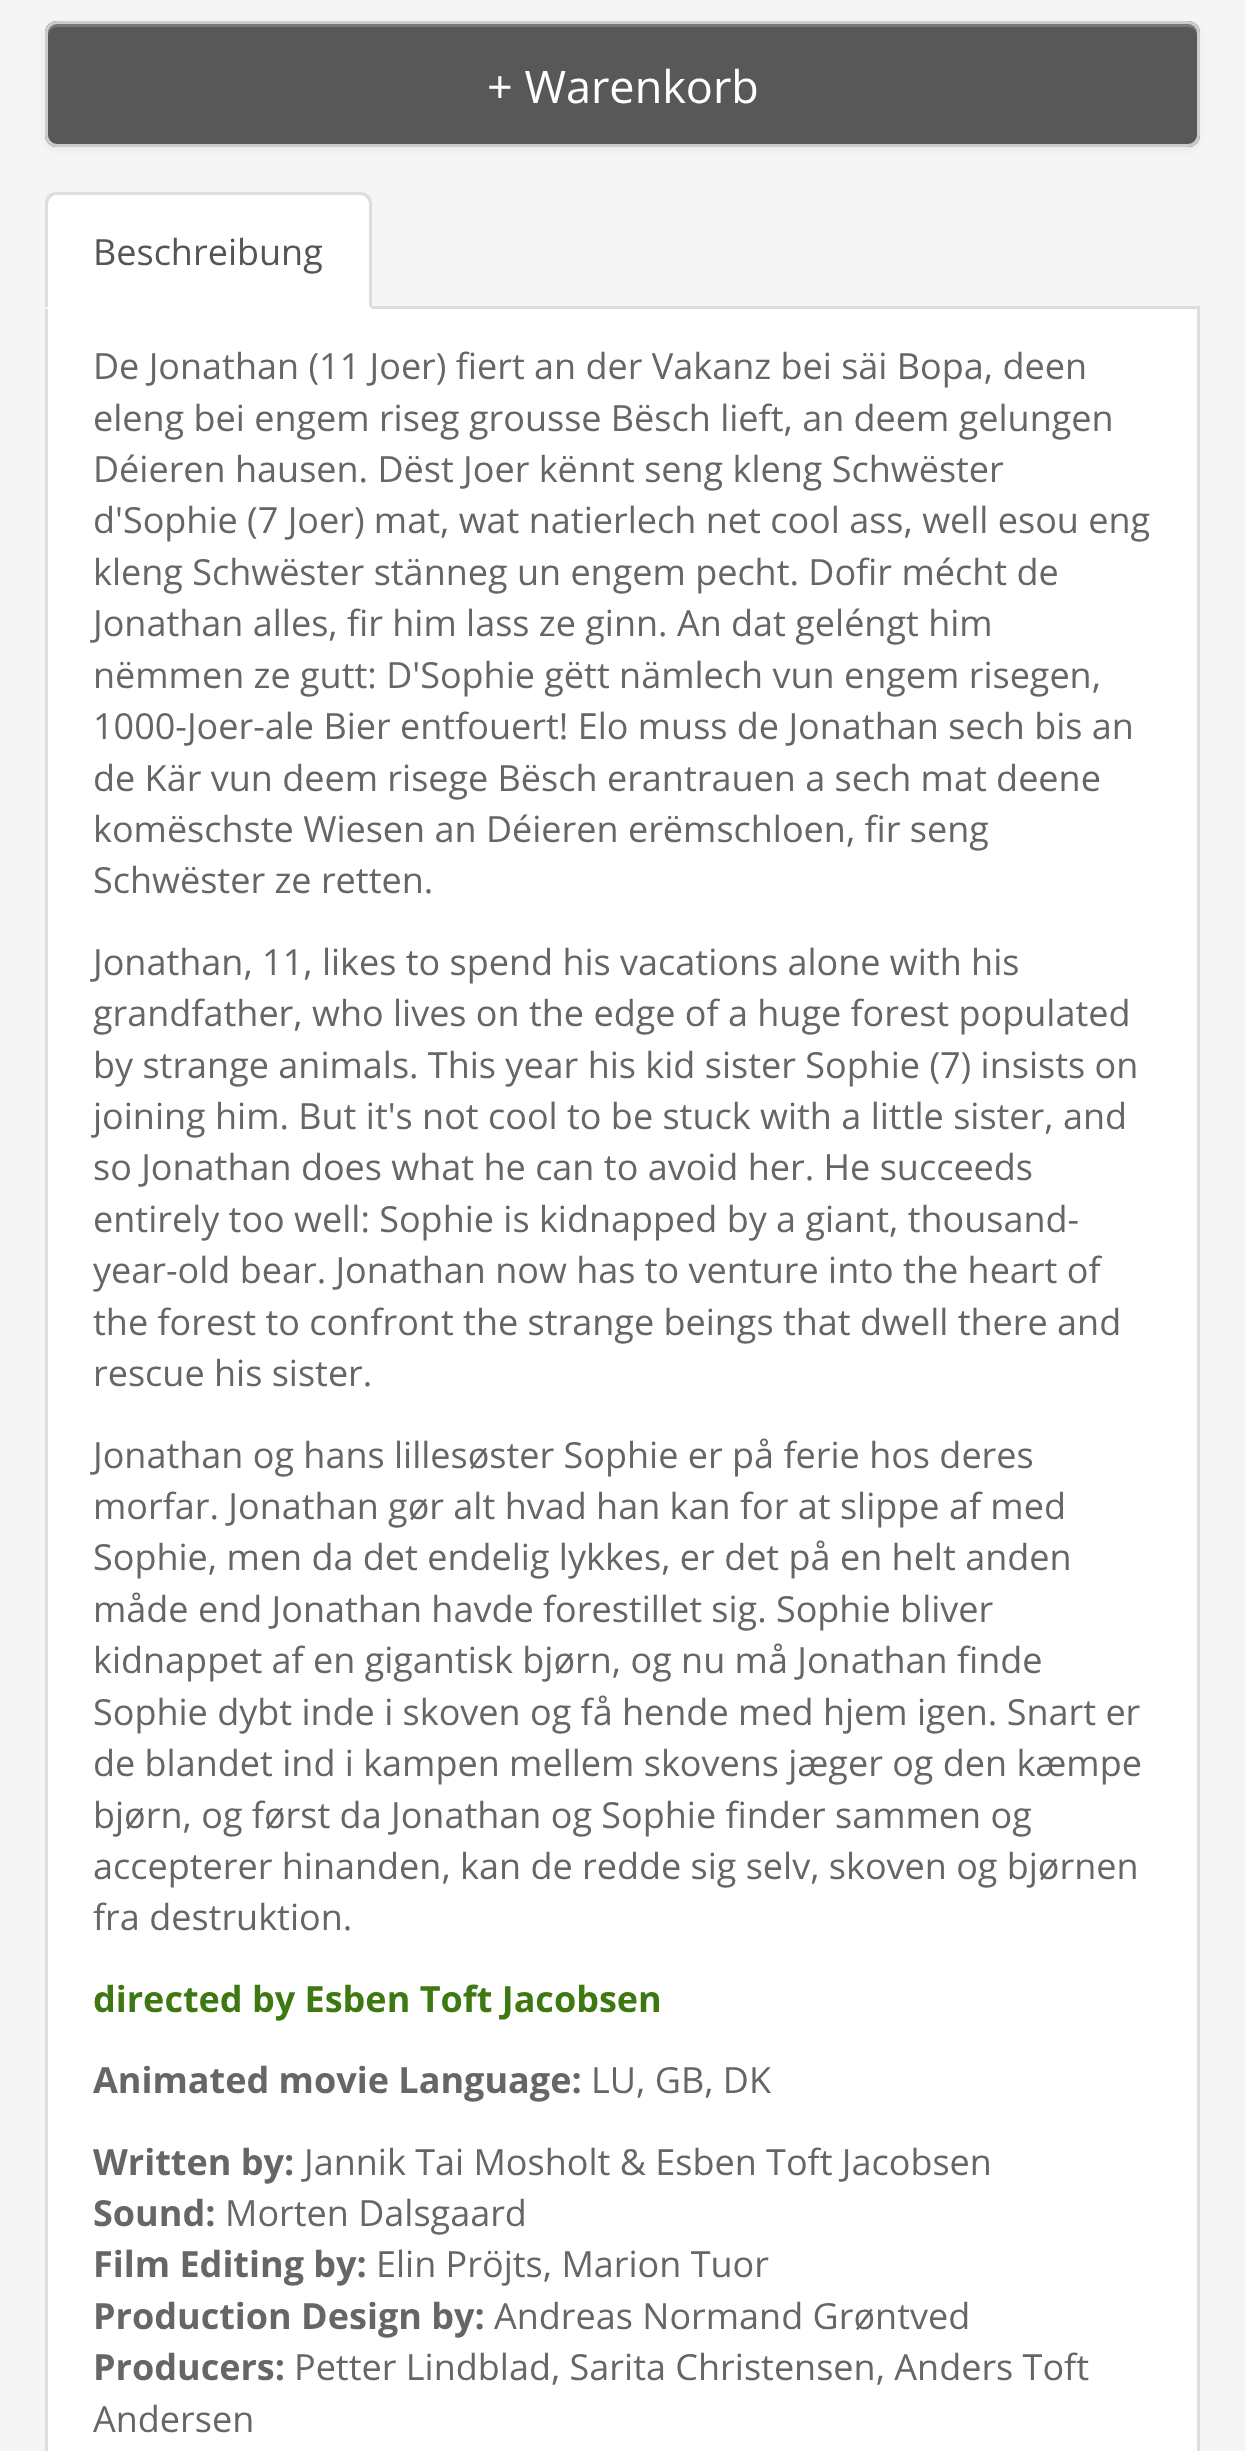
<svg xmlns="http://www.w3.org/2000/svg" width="1245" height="2451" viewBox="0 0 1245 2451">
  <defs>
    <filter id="blur1" x="-50%" y="-200%" width="200%" height="500%"><feGaussianBlur stdDeviation="3"/></filter>
  </defs>
  <rect width="100%" height="100%" fill="#f5f5f5"/>
  <rect x="45" y="24" width="1155" height="126" rx="12" fill="#000000" fill-opacity="0.05" filter="url(#blur1)"/>
  <rect x="45" y="21" width="1155" height="126" rx="12" fill="#585858"/>
  <path d="M57 27H1188C1193 27 1197 31 1197 36V33C1197 28 1193 24 1188 24H57C52 24 48 28 48 33V36C48 31 52 27 57 27Z" fill="#797979"/>
  <rect x="46.5" y="22.5" width="1152" height="123" rx="10.5" fill="none" stroke="#cccccc" stroke-width="3"/>
  <text x="487" y="103" font-family="Open Sans" font-size="45" fill="#ffffff">+ Warenkorb</text>
  <rect x="372" y="306" width="828" height="3" fill="#dddddd"/>
  <path d="M57 192H360C366.5 192 372 197.5 372 204V309H45V204C45 197.5 50.5 192 57 192Z" fill="#ffffff"/>
  <path d="M57 192C54 192 50 193 48 195L51 198C52 196 54 195 57 195H360C362 195 365 196 366 198L369 195C366 193 364 192 360 192Z" fill="#dddddd"/>
  <path d="M372 309V204C372 200 371 198 369 195L366 198C368 199 369 202 369 204V306Z" fill="#dddddd"/>
  <path d="M45 309L48 306V204C48 202 49 199 51 198L48 195C46 198 45 200 45 204Z" fill="#dddddd"/>
  <text x="93" y="265" font-family="Open Sans" font-size="36" fill="#555555">Beschreibung</text>
  <rect x="48" y="309" width="1149" height="2142" fill="#ffffff"/>
  <rect x="1197" y="309" width="3" height="2142" fill="#dddddd"/>
  <rect x="45" y="309" width="3" height="2142" fill="#dddddd"/>
  <text x="93" y="379" font-family="Open Sans" font-size="36" fill="#666666">De Jonathan (11 Joer) fiert an der Vakanz bei säi Bopa, deen</text>
  <text x="93" y="431" font-family="Open Sans" font-size="36" fill="#666666">eleng bei engem riseg grousse Bësch lieft, an deem gelungen</text>
  <text x="93" y="482" font-family="Open Sans" font-size="36" fill="#666666">Déieren hausen. Dëst Joer kënnt seng kleng Schwëster</text>
  <text x="93" y="533" font-family="Open Sans" font-size="36" fill="#666666">d'Sophie (7 Joer) mat, wat natierlech net cool ass, well esou eng</text>
  <text x="93" y="585" font-family="Open Sans" font-size="36" fill="#666666">kleng Schwëster stänneg un engem pecht. Dofir mécht de</text>
  <text x="93" y="636" font-family="Open Sans" font-size="36" fill="#666666">Jonathan alles, fir him lass ze ginn. An dat geléngt him</text>
  <text x="93" y="688" font-family="Open Sans" font-size="36" fill="#666666">nëmmen ze gutt: D'Sophie gëtt nämlech vun engem risegen,</text>
  <text x="93" y="739" font-family="Open Sans" font-size="36" fill="#666666">1000-Joer-ale Bier entfouert! Elo muss de Jonathan sech bis an</text>
  <text x="93" y="791" font-family="Open Sans" font-size="36" fill="#666666">de Kär vun deem risege Bësch erantrauen a sech mat deene</text>
  <text x="93" y="842" font-family="Open Sans" font-size="36" fill="#666666">komëschste Wiesen an Déieren erëmschloen, fir seng</text>
  <text x="93" y="893" font-family="Open Sans" font-size="36" fill="#666666">Schwëster ze retten.</text>
  <text x="93" y="975" font-family="Open Sans" font-size="36" fill="#666666">Jonathan, 11, likes to spend his vacations alone with his</text>
  <text x="93" y="1026" font-family="Open Sans" font-size="36" fill="#666666">grandfather, who lives on the edge of a huge forest populated</text>
  <text x="93" y="1078" font-family="Open Sans" font-size="36" fill="#666666">by strange animals. This year his kid sister Sophie (7) insists on</text>
  <text x="93" y="1129" font-family="Open Sans" font-size="36" fill="#666666">joining him. But it's not cool to be stuck with a little sister, and</text>
  <text x="93" y="1180" font-family="Open Sans" font-size="36" fill="#666666">so Jonathan does what he can to avoid her. He succeeds</text>
  <text x="93" y="1232" font-family="Open Sans" font-size="36" fill="#666666">entirely too well: Sophie is kidnapped by a giant, thousand-</text>
  <text x="93" y="1283" font-family="Open Sans" font-size="36" fill="#666666">year-old bear. Jonathan now has to venture into the heart of</text>
  <text x="93" y="1335" font-family="Open Sans" font-size="36" fill="#666666">the forest to confront the strange beings that dwell there and</text>
  <text x="93" y="1386" font-family="Open Sans" font-size="36" fill="#666666">rescue his sister.</text>
  <text x="93" y="1468" font-family="Open Sans" font-size="36" fill="#666666">Jonathan og hans lillesøster Sophie er på ferie hos deres</text>
  <text x="93" y="1519" font-family="Open Sans" font-size="36" fill="#666666">morfar. Jonathan gør alt hvad han kan for at slippe af med</text>
  <text x="93" y="1570" font-family="Open Sans" font-size="36" fill="#666666">Sophie, men da det endelig lykkes, er det på en helt anden</text>
  <text x="93" y="1622" font-family="Open Sans" font-size="36" fill="#666666">måde end Jonathan havde forestillet sig. Sophie bliver</text>
  <text x="93" y="1673" font-family="Open Sans" font-size="36" fill="#666666">kidnappet af en gigantisk bjørn, og nu må Jonathan finde</text>
  <text x="93" y="1725" font-family="Open Sans" font-size="36" fill="#666666">Sophie dybt inde i skoven og få hende med hjem igen. Snart er</text>
  <text x="93" y="1776" font-family="Open Sans" font-size="36" fill="#666666">de blandet ind i kampen mellem skovens jæger og den kæmpe</text>
  <text x="93" y="1828" font-family="Open Sans" font-size="36" fill="#666666">bjørn, og først da Jonathan og Sophie finder sammen og</text>
  <text x="93" y="1879" font-family="Open Sans" font-size="36" fill="#666666">accepterer hinanden, kan de redde sig selv, skoven og bjørnen</text>
  <text x="93" y="1930" font-family="Open Sans" font-size="36" fill="#666666">fra destruktion.</text>
  <text x="93" y="2012" font-family="Open Sans" font-size="36" font-weight="bold" fill="#3e7810">directed by Esben Toft Jacobsen</text>
  <text x="93" y="2093" font-family="Open Sans" font-size="36" font-weight="bold" fill="#666666">Animated movie Language:</text>
  <text x="591" y="2093" font-family="Open Sans" font-size="36" fill="#666666">LU, GB, DK</text>
  <text x="93" y="2175" font-family="Open Sans" font-size="36" font-weight="bold" fill="#666666">Written by:</text>
  <text x="304" y="2175" font-family="Open Sans" font-size="36" fill="#666666">Jannik Tai Mosholt &amp; Esben Toft Jacobsen</text>
  <text x="93" y="2226" font-family="Open Sans" font-size="36" font-weight="bold" fill="#666666">Sound:</text>
  <text x="225" y="2226" font-family="Open Sans" font-size="36" fill="#666666">Morten Dalsgaard</text>
  <text x="93" y="2277" font-family="Open Sans" font-size="36" font-weight="bold" fill="#666666">Film Editing by:</text>
  <text x="376" y="2277" font-family="Open Sans" font-size="36" fill="#666666">Elin Pröjts, Marion Tuor</text>
  <text x="93" y="2329" font-family="Open Sans" font-size="36" font-weight="bold" fill="#666666">Production Design by:</text>
  <text x="494" y="2329" font-family="Open Sans" font-size="36" fill="#666666">Andreas Normand Grøntved</text>
  <text x="93" y="2380" font-family="Open Sans" font-size="36" font-weight="bold" fill="#666666">Producers:</text>
  <text x="294" y="2380" font-family="Open Sans" font-size="36" fill="#666666">Petter Lindblad, Sarita Christensen, Anders Toft</text>
  <text x="93" y="2432" font-family="Open Sans" font-size="36" fill="#666666">Andersen</text>
</svg>
